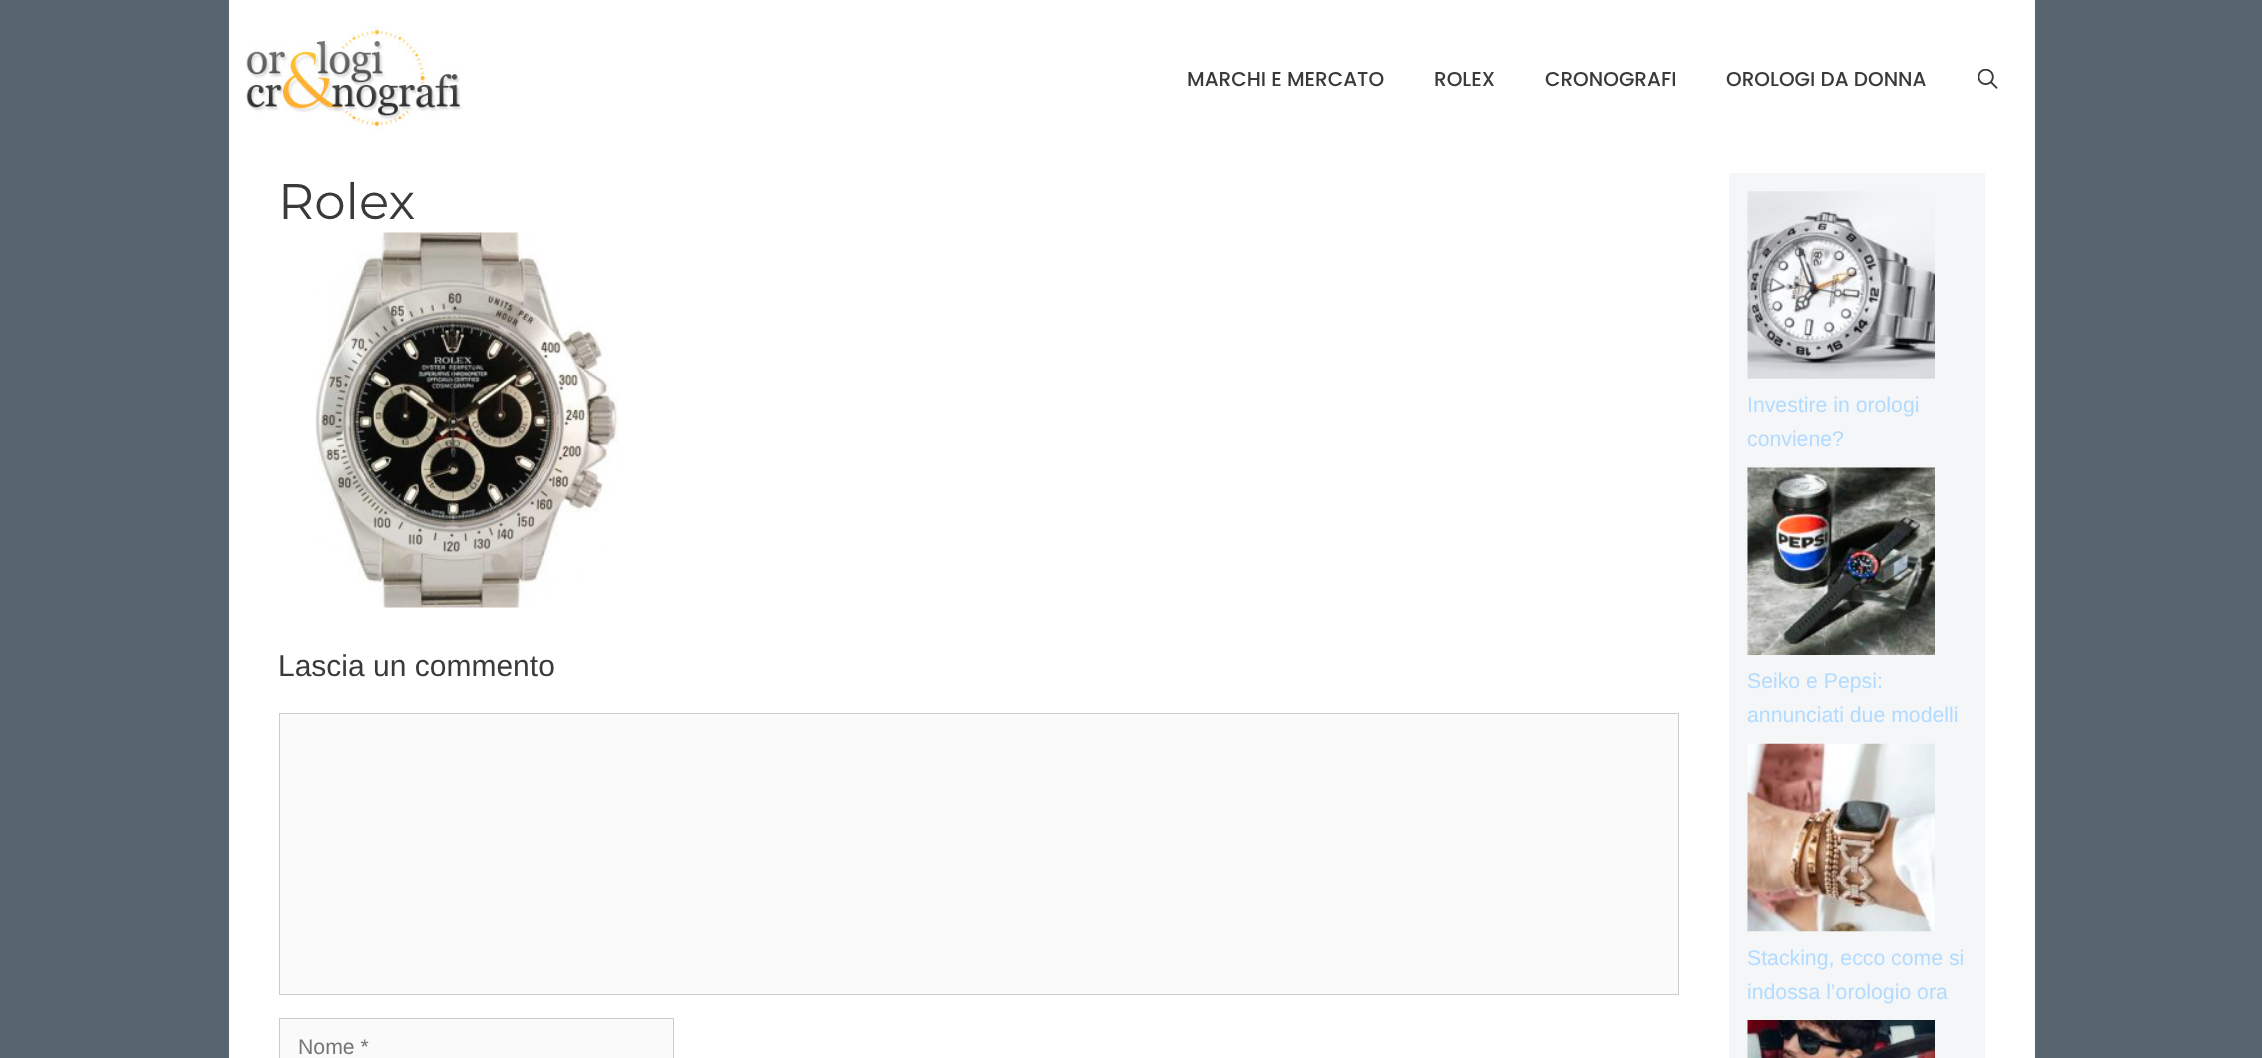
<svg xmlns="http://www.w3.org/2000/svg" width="2262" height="1058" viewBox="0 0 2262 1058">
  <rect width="100%" height="100%" fill="#58656f"/>
  <rect x="229" y="0" width="1806" height="1058" fill="#ffffff"/>
  <image x="246" y="25" width="217" height="107" href="img1.png"/>
  <text x="1187" y="86" font-family="Poppins" font-size="20" font-weight="500" fill="#3a3a3a">MARCHI E MERCATO</text>
  <text x="1434" y="86" font-family="Poppins" font-size="20" font-weight="500" fill="#3a3a3a">ROLEX</text>
  <text x="1545" y="86" font-family="Poppins" font-size="20" font-weight="500" fill="#3a3a3a">CRONOGRAFI</text>
  <text x="1726" y="86" font-family="Poppins" font-size="20" font-weight="500" fill="#3a3a3a">OROLOGI DA DONNA</text>
  <image x="1978" y="69" width="20" height="20" href="img2.png"/>
  <text x="278" y="219" font-family="Montserrat" font-size="50" fill="#3a3a3a">Rolex</text>
  <image x="315" y="232" width="304" height="376" href="img3.png"/>
  <text x="278" y="676" font-family="Liberation Sans" font-size="30" fill="#3a3a3a">Lascia un commento</text>
  <rect x="279.5" y="713.5" width="1399" height="281" fill="#fafafa" stroke="#cccccc"/>
  <rect x="279.5" y="1018.5" width="394" height="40" fill="#fafafa" stroke="#cccccc"/>
  <text x="298" y="1054" font-family="Liberation Sans" font-size="21.25" fill="#757575">Nome *</text>
  <rect x="1729" y="173" width="256" height="885" fill="#f4f6f7"/>
  <image x="1747" y="191" width="188" height="188" href="img4.png"/>
  <text x="1747" y="412" font-family="Liberation Sans" font-size="21.25" fill="#b2dbff">Investire in orologi</text>
  <text x="1747" y="446" font-family="Liberation Sans" font-size="21.25" fill="#b2dbff">conviene?</text>
  <image x="1747" y="467" width="188" height="188" href="img5.png"/>
  <text x="1747" y="688" font-family="Liberation Sans" font-size="21.25" fill="#b2dbff">Seiko e Pepsi:</text>
  <text x="1747" y="722" font-family="Liberation Sans" font-size="21.25" fill="#b2dbff">annunciati due modelli</text>
  <image x="1747" y="743" width="188" height="189" href="img6.png"/>
  <text x="1747" y="965" font-family="Liberation Sans" font-size="21.25" fill="#b2dbff">Stacking, ecco come si</text>
  <text x="1747" y="999" font-family="Liberation Sans" font-size="21.25" fill="#b2dbff">indossa l’orologio ora</text>
  <image x="1747" y="1020" width="188" height="38" href="img7.png"/>
</svg>
